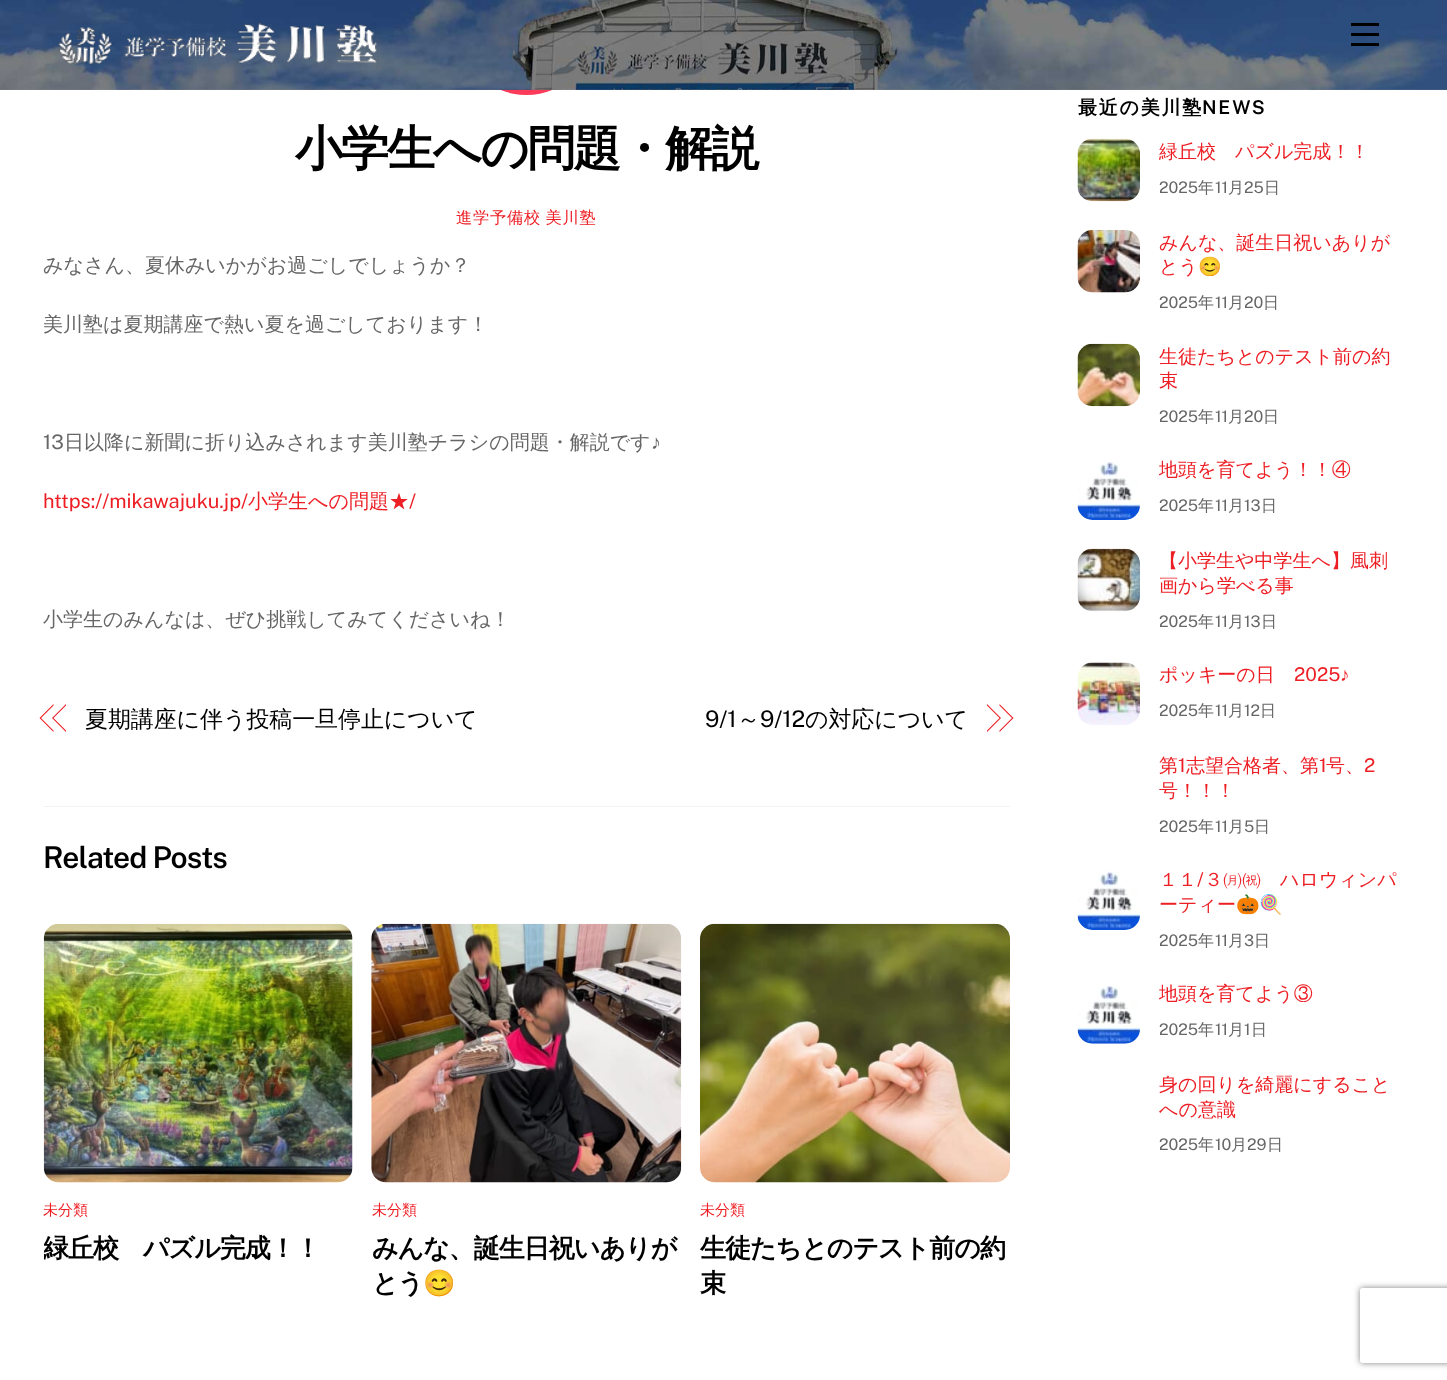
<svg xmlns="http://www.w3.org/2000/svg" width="1447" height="1380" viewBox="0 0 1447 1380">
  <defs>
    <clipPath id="clip1"><rect x="44" y="1199" width="309" height="92"/></clipPath>
    <clipPath id="clip2"><path d="M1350 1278H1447V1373H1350ZM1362.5 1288H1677.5C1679 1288 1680 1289 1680 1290.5V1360.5C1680 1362 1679 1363 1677.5 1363H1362.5C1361 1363 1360 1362 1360 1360.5V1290.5C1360 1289 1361 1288 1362.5 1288Z" clip-rule="evenodd"/></clipPath>
    <filter id="blur1" x="-50%" y="-200%" width="200%" height="500%"><feGaussianBlur stdDeviation="3"/></filter>
  </defs>
  <rect width="100%" height="100%" fill="#ffffff"/>
  <circle cx="526.5" cy="26.5" r="68.5" fill="#fc3a59"/>
  <image x="0" y="0" width="1447" height="90" href="img1.png"/>
  <rect x="0" y="89" width="1447" height="1" fill="#000000" fill-opacity="0.05"/>
  <image x="57" y="22" width="321" height="43" href="img2.png"/>
  <rect x="1351" y="43" width="28" height="3" fill="#000000"/>
  <rect x="1351" y="23" width="28" height="3" fill="#000000"/>
  <rect x="1351" y="33" width="28" height="3" fill="#000000"/>
  <text x="295" y="165" font-family="WenQuanYi Zen Hei" font-size="48" font-weight="bold" letter-spacing="-2" fill="#000000">小学生への問題・解説</text>
  <text x="456" y="223" word-spacing="-1" font-family="WenQuanYi Zen Hei" font-size="16.25" font-weight="500" letter-spacing="0.75" fill="#ed1e24">進学予備校 美川塾</text>
  <text x="43" y="272" font-family="WenQuanYi Zen Hei" font-size="20" font-weight="500" fill="#666666">みなさん、夏休みいかがお過ごしでしょうか？</text>
  <text x="43" y="331" font-family="WenQuanYi Zen Hei" font-size="20" font-weight="500" fill="#666666">美川塾は夏期講座で熱い夏を過ごしております！</text>
  <text x="43" y="449" font-family="Public Sans" font-size="20" fill="#666666">13</text>
  <text x="64" y="449" font-family="WenQuanYi Zen Hei" font-size="20" font-weight="500" fill="#666666">日以降に新聞に折り込みされます美川塾チラシの問題・解説です</text>
  <text x="651" y="449" font-family="Liberation Sans" font-size="20" fill="#666666">♪</text>
  <text x="43" y="508" font-family="Public Sans" font-size="20" fill="#ed1e24">https://mikawajuku.jp/</text>
  <text x="248" y="508" font-family="WenQuanYi Zen Hei" font-size="20" font-weight="500" fill="#ed1e24">小学生への問題★</text>
  <text x="409" y="508" font-family="Public Sans" font-size="20" fill="#ed1e24">/</text>
  <text x="43" y="626" font-family="WenQuanYi Zen Hei" font-size="20" font-weight="500" fill="#666666">小学生のみんなは、ぜひ挑戦してみてくださいね！</text>
  <path d="M39.5 718L53.5 704V705.5L41 718ZM53.5 732L39.5 718H41L53.5 730.5Z" fill="#ed1e24"/>
  <path d="M52 718L66 704V705.5L53.5 718ZM66 732L52 718H53.5L66 730.5Z" fill="#ed1e24"/>
  <text x="85" y="727" font-family="WenQuanYi Zen Hei" font-size="23" font-weight="500" letter-spacing="-0.1" fill="#000000">夏期講座に伴う投稿一旦停止について</text>
  <text x="705" y="727" font-family="Public Sans" font-size="23" letter-spacing="-0.1" fill="#000000">9/1</text>
  <text x="737" y="727" font-family="WenQuanYi Zen Hei" font-size="23" font-weight="500" letter-spacing="-0.1" fill="#000000">～</text>
  <text x="760" y="727" font-family="Public Sans" font-size="23" letter-spacing="-0.1" fill="#000000">9/12</text>
  <text x="805" y="727" font-family="WenQuanYi Zen Hei" font-size="23" font-weight="500" letter-spacing="-0.1" fill="#000000">の対応について</text>
  <path d="M999.5 704L1013.5 718H1012L999.5 705.5ZM1013.5 718L999.5 732V730.5L1012 718Z" fill="#ed1e24"/>
  <path d="M987 704L1001 718H999.5L987 705.5ZM1001 718L987 732V730.5L999.5 718Z" fill="#ed1e24"/>
  <rect x="44" y="806" width="966" height="1" fill="#f2f2f2"/>
  <text x="43" y="868" font-family="Public Sans" font-size="30" font-weight="600" letter-spacing="-0.9" fill="#000000">Related Posts</text>
  <image x="43" y="923" width="310" height="260" href="img3.png"/>
  <text x="43" y="1215" font-family="WenQuanYi Zen Hei" font-size="15" font-weight="500" fill="#ed1e24">未分類</text>
  <g clip-path="url(#clip1)">
    <text x="43" y="1257" font-family="WenQuanYi Zen Hei" font-size="26" font-weight="bold" letter-spacing="-1" fill="#000000">緑丘校　パズル完成！！</text>
  </g>
  <image x="371" y="923" width="311" height="260" href="img4.png"/>
  <text x="372" y="1215" font-family="WenQuanYi Zen Hei" font-size="15" font-weight="500" fill="#ed1e24">未分類</text>
  <text x="372" y="1257" font-family="WenQuanYi Zen Hei" font-size="26" font-weight="bold" letter-spacing="-1" fill="#000000">みんな、誕生日祝いありが</text>
  <text x="372" y="1292" font-family="WenQuanYi Zen Hei" font-size="26" font-weight="bold" letter-spacing="-1" fill="#000000">とう</text>
  <text x="423" y="1292" font-family="Noto Color Emoji" font-size="26" font-weight="bold" letter-spacing="-1" fill="#000000">😊</text>
  <image x="700" y="923" width="310" height="260" href="img5.png"/>
  <text x="700" y="1215" font-family="WenQuanYi Zen Hei" font-size="15" font-weight="500" fill="#ed1e24">未分類</text>
  <text x="700" y="1257" font-family="WenQuanYi Zen Hei" font-size="26" font-weight="bold" letter-spacing="-1" fill="#000000">生徒たちとのテスト前の約</text>
  <text x="700" y="1292" font-family="WenQuanYi Zen Hei" font-size="26" font-weight="bold" letter-spacing="-1" fill="#000000">束</text>
  <text x="1078" y="114" font-family="WenQuanYi Zen Hei" font-size="19" font-weight="bold" letter-spacing="1.75" fill="#000000">最近の美川塾</text>
  <text x="1202" y="114" font-family="Public Sans" font-size="19" font-weight="600" letter-spacing="1.75" fill="#000000">NEWS</text>
  <image x="1077" y="138" width="63" height="64" href="img6.png"/>
  <text x="1159" y="158" font-family="WenQuanYi Zen Hei" font-size="19" font-weight="500" fill="#ed1e24">緑丘校　パズル完成！！</text>
  <text x="1159" y="193" font-family="Public Sans" font-size="16" fill="#666666">2025</text>
  <text x="1198" y="193" font-family="WenQuanYi Zen Hei" font-size="16" font-weight="500" fill="#666666">年</text>
  <text x="1215" y="193" font-family="Public Sans" font-size="16" fill="#666666">11</text>
  <text x="1228" y="193" font-family="WenQuanYi Zen Hei" font-size="16" font-weight="500" fill="#666666">月</text>
  <text x="1244" y="193" font-family="Public Sans" font-size="16" fill="#666666">25</text>
  <text x="1264" y="193" font-family="WenQuanYi Zen Hei" font-size="16" font-weight="500" fill="#666666">日</text>
  <image x="1077" y="230" width="63" height="63" href="img7.png"/>
  <text x="1159" y="249" font-family="WenQuanYi Zen Hei" font-size="19" font-weight="500" fill="#ed1e24">みんな、誕生日祝いありが</text>
  <text x="1159" y="273" font-family="WenQuanYi Zen Hei" font-size="19" font-weight="500" fill="#ed1e24">とう</text>
  <text x="1198" y="273" font-family="Noto Color Emoji" font-size="19" fill="#ed1e24">😊</text>
  <text x="1159" y="308" font-family="Public Sans" font-size="16" fill="#666666">2025</text>
  <text x="1198" y="308" font-family="WenQuanYi Zen Hei" font-size="16" font-weight="500" fill="#666666">年</text>
  <text x="1215" y="308" font-family="Public Sans" font-size="16" fill="#666666">11</text>
  <text x="1228" y="308" font-family="WenQuanYi Zen Hei" font-size="16" font-weight="500" fill="#666666">月</text>
  <text x="1244" y="308" font-family="Public Sans" font-size="16" fill="#666666">20</text>
  <text x="1263" y="308" font-family="WenQuanYi Zen Hei" font-size="16" font-weight="500" fill="#666666">日</text>
  <image x="1077" y="343" width="63" height="64" href="img8.png"/>
  <text x="1159" y="363" font-family="WenQuanYi Zen Hei" font-size="19" font-weight="500" fill="#ed1e24">生徒たちとのテスト前の約</text>
  <text x="1159" y="387" font-family="WenQuanYi Zen Hei" font-size="19" font-weight="500" fill="#ed1e24">束</text>
  <text x="1159" y="422" font-family="Public Sans" font-size="16" fill="#666666">2025</text>
  <text x="1198" y="422" font-family="WenQuanYi Zen Hei" font-size="16" font-weight="500" fill="#666666">年</text>
  <text x="1215" y="422" font-family="Public Sans" font-size="16" fill="#666666">11</text>
  <text x="1228" y="422" font-family="WenQuanYi Zen Hei" font-size="16" font-weight="500" fill="#666666">月</text>
  <text x="1244" y="422" font-family="Public Sans" font-size="16" fill="#666666">20</text>
  <text x="1263" y="422" font-family="WenQuanYi Zen Hei" font-size="16" font-weight="500" fill="#666666">日</text>
  <image x="1077" y="460" width="63" height="60" href="img9.png"/>
  <text x="1159" y="476" font-family="WenQuanYi Zen Hei" font-size="19" font-weight="500" fill="#ed1e24">地頭を育てよう！！④</text>
  <text x="1159" y="511" font-family="Public Sans" font-size="16" fill="#666666">2025</text>
  <text x="1198" y="511" font-family="WenQuanYi Zen Hei" font-size="16" font-weight="500" fill="#666666">年</text>
  <text x="1215" y="511" font-family="Public Sans" font-size="16" fill="#666666">11</text>
  <text x="1228" y="511" font-family="WenQuanYi Zen Hei" font-size="16" font-weight="500" fill="#666666">月</text>
  <text x="1244" y="511" font-family="Public Sans" font-size="16" fill="#666666">13</text>
  <text x="1261" y="511" font-family="WenQuanYi Zen Hei" font-size="16" font-weight="500" fill="#666666">日</text>
  <image x="1077" y="548" width="63" height="64" href="img10.png"/>
  <text x="1159" y="567" font-family="WenQuanYi Zen Hei" font-size="19" font-weight="500" fill="#ed1e24">【小学生や中学生へ】風刺</text>
  <text x="1159" y="592" font-family="WenQuanYi Zen Hei" font-size="19" font-weight="500" fill="#ed1e24">画から学べる事</text>
  <text x="1159" y="627" font-family="Public Sans" font-size="16" fill="#666666">2025</text>
  <text x="1198" y="627" font-family="WenQuanYi Zen Hei" font-size="16" font-weight="500" fill="#666666">年</text>
  <text x="1215" y="627" font-family="Public Sans" font-size="16" fill="#666666">11</text>
  <text x="1228" y="627" font-family="WenQuanYi Zen Hei" font-size="16" font-weight="500" fill="#666666">月</text>
  <text x="1244" y="627" font-family="Public Sans" font-size="16" fill="#666666">13</text>
  <text x="1261" y="627" font-family="WenQuanYi Zen Hei" font-size="16" font-weight="500" fill="#666666">日</text>
  <image x="1077" y="662" width="63" height="63" href="img11.png"/>
  <text x="1159" y="681" font-family="WenQuanYi Zen Hei" font-size="19" font-weight="500" fill="#ed1e24">ポッキーの日</text>
  <text x="1294" y="681" font-family="Public Sans" font-size="19" fill="#ed1e24">2025</text>
  <text x="1340" y="681" font-family="Liberation Sans" font-size="19" fill="#ed1e24">♪</text>
  <text x="1159" y="716" font-family="Public Sans" font-size="16" fill="#666666">2025</text>
  <text x="1198" y="716" font-family="WenQuanYi Zen Hei" font-size="16" font-weight="500" fill="#666666">年</text>
  <text x="1215" y="716" font-family="Public Sans" font-size="16" fill="#666666">11</text>
  <text x="1228" y="716" font-family="WenQuanYi Zen Hei" font-size="16" font-weight="500" fill="#666666">月</text>
  <text x="1244" y="716" font-family="Public Sans" font-size="16" fill="#666666">12</text>
  <text x="1260" y="716" font-family="WenQuanYi Zen Hei" font-size="16" font-weight="500" fill="#666666">日</text>
  <text x="1159" y="772" font-family="WenQuanYi Zen Hei" font-size="19" font-weight="500" fill="#ed1e24">第</text>
  <text x="1178" y="772" font-family="Public Sans" font-size="19" fill="#ed1e24">1</text>
  <text x="1186" y="772" font-family="WenQuanYi Zen Hei" font-size="19" font-weight="500" fill="#ed1e24">志望合格者、第</text>
  <text x="1319" y="772" font-family="Public Sans" font-size="19" fill="#ed1e24">1</text>
  <text x="1326" y="772" font-family="WenQuanYi Zen Hei" font-size="19" font-weight="500" fill="#ed1e24">号、</text>
  <text x="1364" y="772" font-family="Public Sans" font-size="19" fill="#ed1e24">2</text>
  <text x="1159" y="797" font-family="WenQuanYi Zen Hei" font-size="19" font-weight="500" fill="#ed1e24">号！！！</text>
  <text x="1159" y="832" font-family="Public Sans" font-size="16" fill="#666666">2025</text>
  <text x="1198" y="832" font-family="WenQuanYi Zen Hei" font-size="16" font-weight="500" fill="#666666">年</text>
  <text x="1215" y="832" font-family="Public Sans" font-size="16" fill="#666666">11</text>
  <text x="1228" y="832" font-family="WenQuanYi Zen Hei" font-size="16" font-weight="500" fill="#666666">月</text>
  <text x="1244" y="832" font-family="Public Sans" font-size="16" fill="#666666">5</text>
  <text x="1254" y="832" font-family="WenQuanYi Zen Hei" font-size="16" font-weight="500" fill="#666666">日</text>
  <image x="1077" y="870" width="63" height="60" href="img9.png"/>
  <text x="1159" y="886" font-family="WenQuanYi Zen Hei" font-size="19" font-weight="500" fill="#ed1e24">１１</text>
  <text x="1197" y="886" font-family="Public Sans" font-size="19" fill="#ed1e24">/</text>
  <text x="1204" y="886" font-family="WenQuanYi Zen Hei" font-size="19" font-weight="500" fill="#ed1e24">３㈪㈷　ハロウィンパ</text>
  <text x="1159" y="911" font-family="WenQuanYi Zen Hei" font-size="19" font-weight="500" fill="#ed1e24">ーティー</text>
  <text x="1236" y="911" font-family="Noto Color Emoji" font-size="19" fill="#ed1e24">🎃🍭</text>
  <text x="1159" y="946" font-family="Public Sans" font-size="16" fill="#666666">2025</text>
  <text x="1198" y="946" font-family="WenQuanYi Zen Hei" font-size="16" font-weight="500" fill="#666666">年</text>
  <text x="1215" y="946" font-family="Public Sans" font-size="16" fill="#666666">11</text>
  <text x="1228" y="946" font-family="WenQuanYi Zen Hei" font-size="16" font-weight="500" fill="#666666">月</text>
  <text x="1244" y="946" font-family="Public Sans" font-size="16" fill="#666666">3</text>
  <text x="1254" y="946" font-family="WenQuanYi Zen Hei" font-size="16" font-weight="500" fill="#666666">日</text>
  <image x="1077" y="984" width="63" height="60" href="img12.png"/>
  <text x="1159" y="1000" font-family="WenQuanYi Zen Hei" font-size="19" font-weight="500" fill="#ed1e24">地頭を育てよう③</text>
  <text x="1159" y="1035" font-family="Public Sans" font-size="16" fill="#666666">2025</text>
  <text x="1198" y="1035" font-family="WenQuanYi Zen Hei" font-size="16" font-weight="500" fill="#666666">年</text>
  <text x="1215" y="1035" font-family="Public Sans" font-size="16" fill="#666666">11</text>
  <text x="1228" y="1035" font-family="WenQuanYi Zen Hei" font-size="16" font-weight="500" fill="#666666">月</text>
  <text x="1244" y="1035" font-family="Public Sans" font-size="16" fill="#666666">1</text>
  <text x="1251" y="1035" font-family="WenQuanYi Zen Hei" font-size="16" font-weight="500" fill="#666666">日</text>
  <text x="1159" y="1091" font-family="WenQuanYi Zen Hei" font-size="19" font-weight="500" fill="#ed1e24">身の回りを綺麗にすること</text>
  <text x="1159" y="1116" font-family="WenQuanYi Zen Hei" font-size="19" font-weight="500" fill="#ed1e24">への意識</text>
  <text x="1159" y="1150" font-family="Public Sans" font-size="16" fill="#666666">2025</text>
  <text x="1198" y="1150" font-family="WenQuanYi Zen Hei" font-size="16" font-weight="500" fill="#666666">年</text>
  <text x="1215" y="1150" font-family="Public Sans" font-size="16" fill="#666666">10</text>
  <text x="1231" y="1150" font-family="WenQuanYi Zen Hei" font-size="16" font-weight="500" fill="#666666">月</text>
  <text x="1247" y="1150" font-family="Public Sans" font-size="16" fill="#666666">29</text>
  <text x="1267" y="1150" font-family="WenQuanYi Zen Hei" font-size="16" font-weight="500" fill="#666666">日</text>
  <g clip-path="url(#clip2)">
    <rect x="1360" y="1288" width="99" height="75" rx="2.5" fill="#808080" filter="url(#blur1)"/>
  </g>
</svg>
